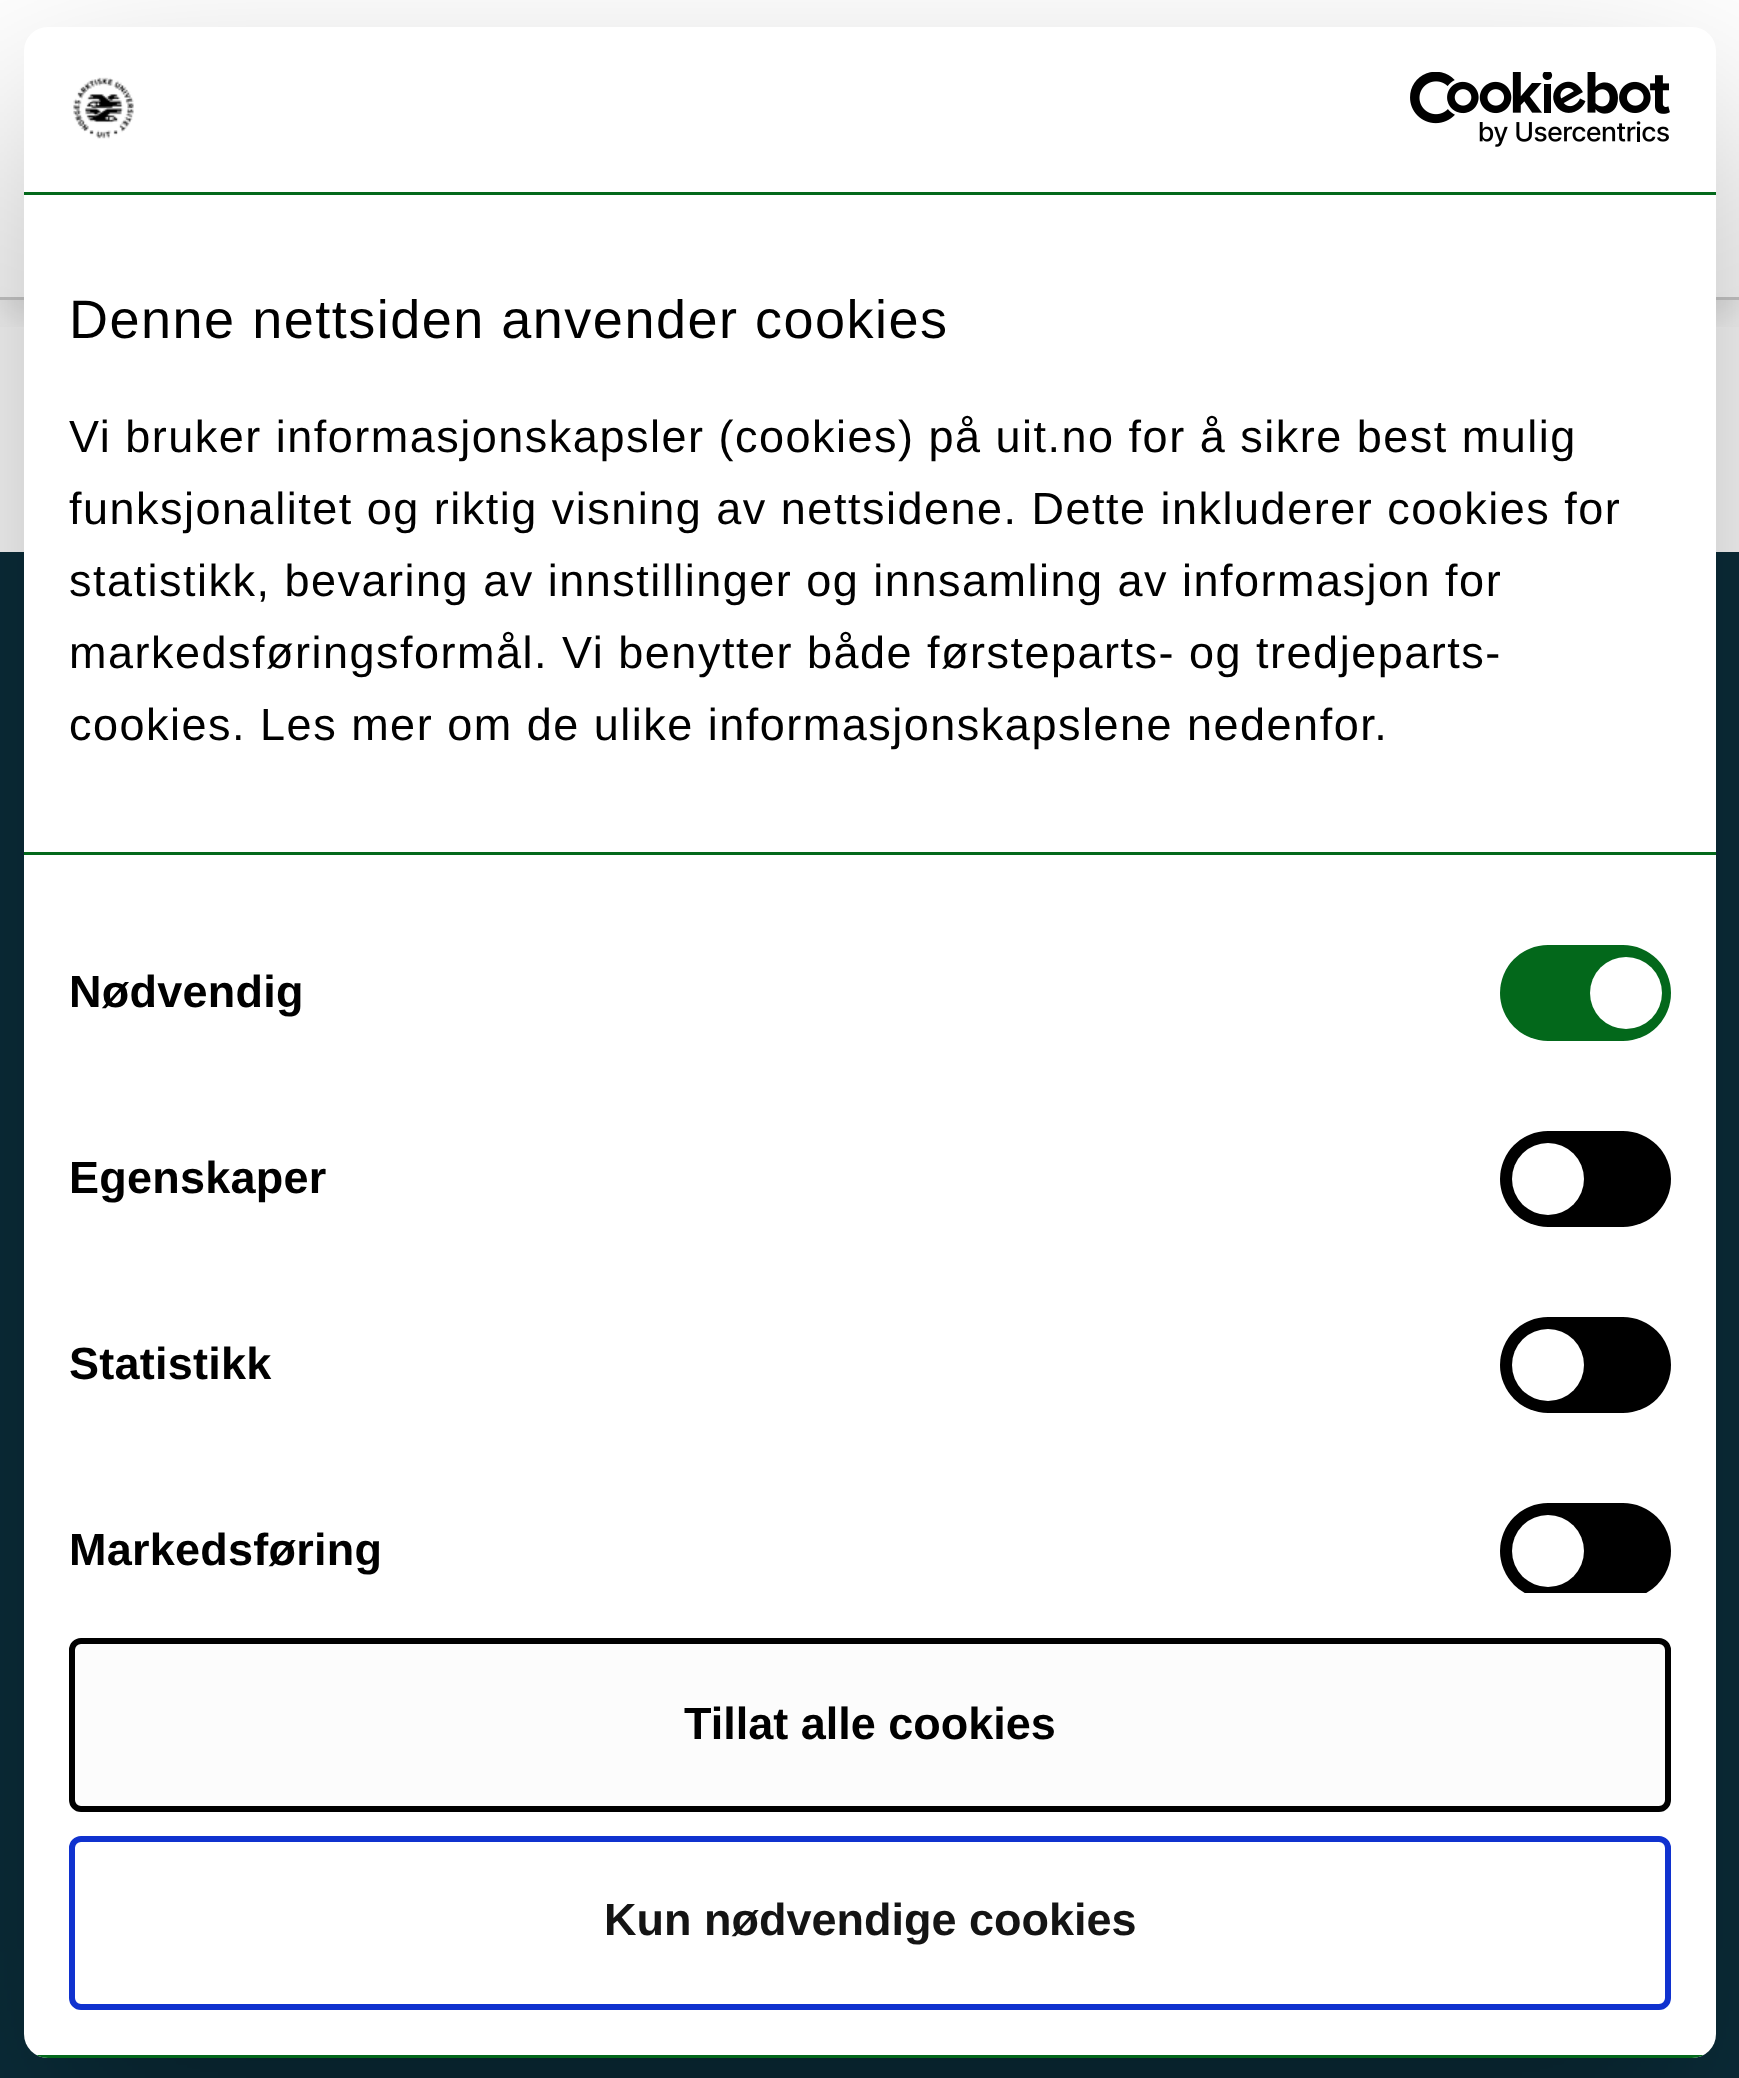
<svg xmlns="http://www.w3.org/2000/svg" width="1739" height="2078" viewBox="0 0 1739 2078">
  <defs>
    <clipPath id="clip1"><rect x="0" y="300" width="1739" height="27"/></clipPath>
    <filter id="blur1" x="-50%" y="-200%" width="200%" height="500%"><feGaussianBlur stdDeviation="15"/></filter>
    <filter id="blur2" x="-50%" y="-200%" width="200%" height="500%"><feGaussianBlur stdDeviation="102"/></filter>
    <clipPath id="clip2"><rect x="24" y="195" width="1692" height="1398"/></clipPath>
    <clipPath id="clip3"><rect x="24" y="27" width="1692" height="2031" rx="24"/></clipPath>
  </defs>
  <rect width="100%" height="100%" fill="#ffffff"/>
  <g clip-path="url(#clip1)">
    <rect x="0" y="15" width="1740" height="300" fill="#000000" fill-opacity="0.1" filter="url(#blur1)"/>
  </g>
  <rect x="0" y="297" width="1739" height="3" fill="#cccccc"/>
  <rect x="0" y="552" width="1739" height="1526" fill="#0a2d3a"/>
  <rect x="24" y="123" width="1692" height="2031" rx="24" fill="#000000" fill-opacity="0.3" filter="url(#blur2)"/>
  <rect x="24" y="27" width="1692" height="2031" rx="24" fill="#ffffff"/>
  <rect x="24" y="192" width="1692" height="3" fill="#03681b"/>
  <image x="73" y="77" width="61" height="62" href="img1.png"/>
  <image x="1410" y="72" width="260" height="75" href="img2.png"/>
  <rect x="24" y="852" width="1692" height="3" fill="#03681b"/>
  <text x="69" y="338" font-family="Liberation Sans" font-size="54" letter-spacing="1.5" fill="#000000">Denne nettsiden anvender cookies</text>
  <text x="69" y="452" font-family="Liberation Sans" font-size="45" letter-spacing="1.5" fill="#000000">Vi bruker informasjonskapsler (cookies) på uit.no for å sikre best mulig</text>
  <text x="69" y="524" font-family="Liberation Sans" font-size="45" letter-spacing="1.5" fill="#000000">funksjonalitet og riktig visning av nettsidene. Dette inkluderer cookies for</text>
  <text x="69" y="596" font-family="Liberation Sans" font-size="45" letter-spacing="1.5" fill="#000000">statistikk, bevaring av innstillinger og innsamling av informasjon for</text>
  <text x="69" y="668" font-family="Liberation Sans" font-size="45" letter-spacing="1.5" fill="#000000">markedsføringsformål. Vi benytter både førsteparts- og tredjeparts-</text>
  <text x="69" y="740" font-family="Liberation Sans" font-size="45" letter-spacing="1.5" fill="#000000">cookies. Les mer om de ulike informasjonskapslene nedenfor.</text>
  <text x="69" y="1007" font-family="Liberation Sans" font-size="45" font-weight="bold" letter-spacing="0.25" fill="#000000">Nødvendig</text>
  <rect x="1500" y="945" width="171" height="96" rx="48" fill="#03681b"/>
  <circle cx="1626" cy="993" r="36" fill="#ffffff"/>
  <text x="69" y="1193" font-family="Liberation Sans" font-size="45" font-weight="bold" letter-spacing="0.25" fill="#000000">Egenskaper</text>
  <rect x="1500" y="1131" width="171" height="96" rx="48" fill="#000000"/>
  <circle cx="1548" cy="1179" r="36" fill="#ffffff"/>
  <text x="69" y="1379" font-family="Liberation Sans" font-size="45" font-weight="bold" letter-spacing="0.25" fill="#000000">Statistikk</text>
  <rect x="1500" y="1317" width="171" height="96" rx="48" fill="#000000"/>
  <circle cx="1548" cy="1365" r="36" fill="#ffffff"/>
  <text x="69" y="1565" font-family="Liberation Sans" font-size="45" font-weight="bold" letter-spacing="0.25" fill="#000000">Markedsføring</text>
  <g clip-path="url(#clip2)">
    <rect x="1500" y="1503" width="171" height="96" rx="48" fill="#000000"/>
  </g>
  <circle cx="1548" cy="1551" r="36" fill="#ffffff"/>
  <g clip-path="url(#clip3)">
    <rect x="36" y="2055" width="1668" height="3" fill="#03681b"/>
  </g>
  <rect x="72" y="1641" width="1596" height="168" rx="9" fill="#fcfcfc" stroke="#000000" stroke-width="6"/>
  <text x="684" y="1739" font-family="Liberation Sans" font-size="45" font-weight="bold" fill="#000000">Tillat alle cookies</text>
  <rect x="72" y="1839" width="1596" height="168" rx="9" fill="none" stroke="#1032cf" stroke-width="6"/>
  <text x="604" y="1935" font-family="Liberation Sans" font-size="45" font-weight="bold" fill="#141414">Kun nødvendige cookies</text>
</svg>
